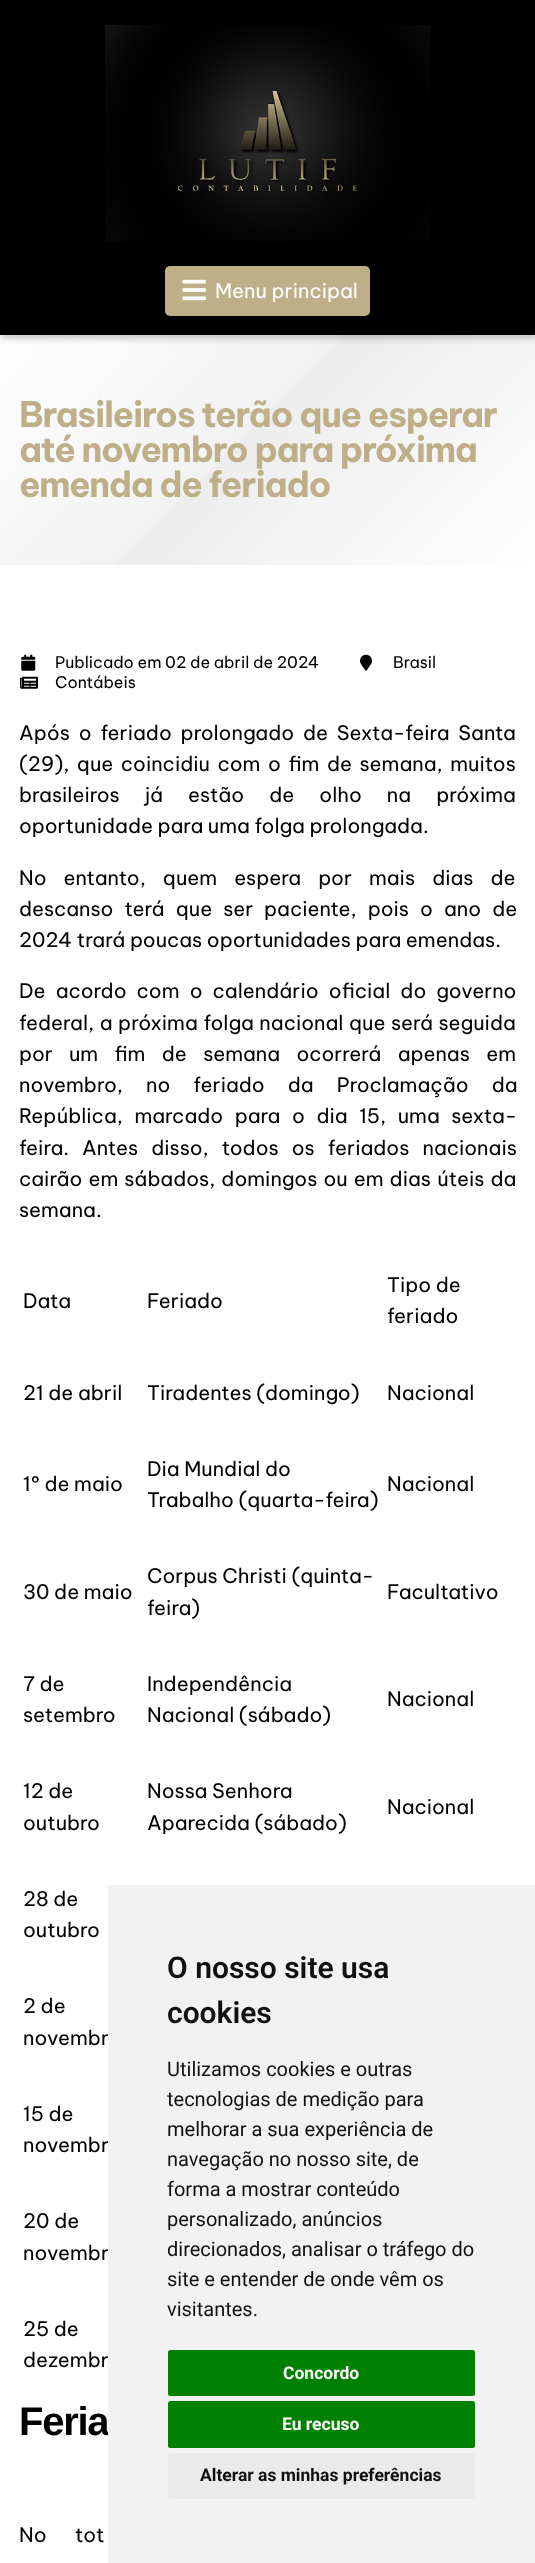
<svg xmlns="http://www.w3.org/2000/svg" width="535" height="2563" viewBox="0 0 535 2563">
  <defs>
    <linearGradient id="g1" gradientUnits="userSpaceOnUse" x1="76" y1="259" x2="459" y2="641"><stop offset="0" stop-color="#ffffff"/><stop offset="0.45" stop-color="#f2f2f2"/><stop offset="0.45" stop-color="#ededed"/><stop offset="1" stop-color="#ffffff"/></linearGradient>
    <filter id="blur1" x="-50%" y="-200%" width="200%" height="500%"><feGaussianBlur stdDeviation="3"/></filter>
  </defs>
  <rect width="100%" height="100%" fill="#ffffff"/>
  <rect x="0" y="335" width="535" height="230" fill="url(#g1)"/>
  <rect x="1" y="4" width="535" height="335" fill="#000000" fill-opacity="0.2" filter="url(#blur1)"/>
  <rect x="0" y="0" width="535" height="335" fill="#000000"/>
  <image x="105" y="25" width="325" height="217" href="img1.png"/>
  <rect x="165" y="266" width="205" height="50" rx="5" fill="#beaf89"/>
  <image x="182" y="279" width="24" height="22" href="img2.png"/>
  <text x="215" y="298" font-family="Be Vietnam Pro" font-size="20" fill="#ffffff">Menu principal</text>
  <text x="19" y="427" font-family="Be Vietnam Pro" font-size="35" font-weight="bold" letter-spacing="-1.25" fill="#beaf89">Brasileiros terão que esperar</text>
  <text x="19" y="462" font-family="Be Vietnam Pro" font-size="35" font-weight="bold" letter-spacing="-1.25" fill="#beaf89">até novembro para próxima</text>
  <text x="19" y="497" font-family="Be Vietnam Pro" font-size="35" font-weight="bold" letter-spacing="-1.25" fill="#beaf89">emenda de feriado</text>
  <image x="21" y="654" width="15" height="17" href="img3.png"/>
  <text x="55" y="668" font-family="Be Vietnam Pro" font-size="16" fill="#000000">Publicado em 02 de abril de 2024</text>
  <image x="360" y="654" width="12" height="17" href="img4.png"/>
  <text x="393" y="668" font-family="Be Vietnam Pro" font-size="16" fill="#000000">Brasil</text>
  <image x="20" y="676" width="18" height="13" href="img5.png"/>
  <text x="55" y="688" font-family="Be Vietnam Pro" font-size="16" fill="#000000">Contábeis</text>
  <text x="19" y="740" word-spacing="4.25" font-family="Be Vietnam Pro" font-size="20" fill="#000000">Após o feriado prolongado de Sexta-feira Santa</text>
  <text x="19" y="771" word-spacing="3" font-family="Be Vietnam Pro" font-size="20" fill="#000000">(29), que coincidiu com o fim de semana, muitos</text>
  <text x="19" y="802" word-spacing="20.5" font-family="Be Vietnam Pro" font-size="20" fill="#000000">brasileiros já estão de olho na próxima</text>
  <text x="19" y="833" font-family="Be Vietnam Pro" font-size="20" fill="#000000">oportunidade para uma folga prolongada.</text>
  <text x="19" y="885" word-spacing="12.5" font-family="Be Vietnam Pro" font-size="20" fill="#000000">No entanto, quem espera por mais dias de</text>
  <text x="19" y="916" word-spacing="6.5" font-family="Be Vietnam Pro" font-size="20" fill="#000000">descanso terá que ser paciente, pois o ano de</text>
  <text x="19" y="947" font-family="Be Vietnam Pro" font-size="20" fill="#000000">2024 trará poucas oportunidades para emendas.</text>
  <text x="19" y="998" word-spacing="5.5" font-family="Be Vietnam Pro" font-size="20" fill="#000000">De acordo com o calendário oficial do governo</text>
  <text x="19" y="1030" word-spacing="1" font-family="Be Vietnam Pro" font-size="20" fill="#000000">federal, a próxima folga nacional que será seguida</text>
  <text x="19" y="1061" word-spacing="11.75" font-family="Be Vietnam Pro" font-size="20" fill="#000000">por um fim de semana ocorrerá apenas em</text>
  <text x="19" y="1092" word-spacing="18.5" font-family="Be Vietnam Pro" font-size="20" fill="#000000">novembro, no feriado da Proclamação da</text>
  <text x="19" y="1123" word-spacing="7" font-family="Be Vietnam Pro" font-size="20" fill="#000000">República, marcado para o dia 15, uma sexta-</text>
  <text x="19" y="1155" word-spacing="8.5" font-family="Be Vietnam Pro" font-size="20" fill="#000000">feira. Antes disso, todos os feriados nacionais</text>
  <text x="19" y="1186" word-spacing="1.5" font-family="Be Vietnam Pro" font-size="20" fill="#000000">cairão em sábados, domingos ou em dias úteis da</text>
  <text x="19" y="1217" font-family="Be Vietnam Pro" font-size="20" fill="#000000">semana.</text>
  <text x="23" y="1308" font-family="Be Vietnam Pro" font-size="20" fill="#000000">Data</text>
  <text x="147" y="1308" font-family="Be Vietnam Pro" font-size="20" fill="#000000">Feriado</text>
  <text x="387" y="1292" font-family="Be Vietnam Pro" font-size="20" fill="#000000">Tipo de</text>
  <text x="387" y="1323" font-family="Be Vietnam Pro" font-size="20" fill="#000000">feriado</text>
  <text x="23" y="1400" font-family="Be Vietnam Pro" font-size="20" fill="#000000">21 de abril</text>
  <text x="147" y="1400" font-family="Be Vietnam Pro" font-size="20" fill="#000000">Tiradentes (domingo)</text>
  <text x="387" y="1400" font-family="Be Vietnam Pro" font-size="20" fill="#000000">Nacional</text>
  <text x="23" y="1491" font-family="Be Vietnam Pro" font-size="20" fill="#000000">1º de maio</text>
  <text x="147" y="1476" font-family="Be Vietnam Pro" font-size="20" fill="#000000">Dia Mundial do</text>
  <text x="147" y="1507" font-family="Be Vietnam Pro" font-size="20" fill="#000000">Trabalho (quarta-feira)</text>
  <text x="387" y="1491" font-family="Be Vietnam Pro" font-size="20" fill="#000000">Nacional</text>
  <text x="23" y="1599" font-family="Be Vietnam Pro" font-size="20" fill="#000000">30 de maio</text>
  <text x="147" y="1583" font-family="Be Vietnam Pro" font-size="20" fill="#000000">Corpus Christi (quinta-</text>
  <text x="147" y="1615" font-family="Be Vietnam Pro" font-size="20" fill="#000000">feira)</text>
  <text x="387" y="1599" font-family="Be Vietnam Pro" font-size="20" fill="#000000">Facultativo</text>
  <text x="23" y="1691" font-family="Be Vietnam Pro" font-size="20" fill="#000000">7 de</text>
  <text x="23" y="1722" font-family="Be Vietnam Pro" font-size="20" fill="#000000">setembro</text>
  <text x="147" y="1691" font-family="Be Vietnam Pro" font-size="20" fill="#000000">Independência</text>
  <text x="147" y="1722" font-family="Be Vietnam Pro" font-size="20" fill="#000000">Nacional (sábado)</text>
  <text x="387" y="1706" font-family="Be Vietnam Pro" font-size="20" fill="#000000">Nacional</text>
  <text x="23" y="1798" font-family="Be Vietnam Pro" font-size="20" fill="#000000">12 de</text>
  <text x="23" y="1830" font-family="Be Vietnam Pro" font-size="20" fill="#000000">outubro</text>
  <text x="147" y="1798" font-family="Be Vietnam Pro" font-size="20" fill="#000000">Nossa Senhora</text>
  <text x="147" y="1830" font-family="Be Vietnam Pro" font-size="20" fill="#000000">Aparecida (sábado)</text>
  <text x="387" y="1814" font-family="Be Vietnam Pro" font-size="20" fill="#000000">Nacional</text>
  <text x="23" y="1906" font-family="Be Vietnam Pro" font-size="20" fill="#000000">28 de</text>
  <text x="23" y="1937" font-family="Be Vietnam Pro" font-size="20" fill="#000000">outubro</text>
  <text x="23" y="2013" font-family="Be Vietnam Pro" font-size="20" fill="#000000">2 de</text>
  <text x="23" y="2045" font-family="Be Vietnam Pro" font-size="20" fill="#000000">novembr</text>
  <text x="23" y="2121" font-family="Be Vietnam Pro" font-size="20" fill="#000000">15 de</text>
  <text x="23" y="2152" font-family="Be Vietnam Pro" font-size="20" fill="#000000">novembr</text>
  <text x="23" y="2228" font-family="Be Vietnam Pro" font-size="20" fill="#000000">20 de</text>
  <text x="23" y="2260" font-family="Be Vietnam Pro" font-size="20" fill="#000000">novembr</text>
  <text x="23" y="2336" font-family="Be Vietnam Pro" font-size="20" fill="#000000">25 de</text>
  <text x="23" y="2367" font-family="Be Vietnam Pro" font-size="20" fill="#000000">dezembr</text>
  <text x="19" y="2435" font-family="Liberation Sans" font-size="40" font-weight="bold" letter-spacing="-1.25" fill="#000000">Feria</text>
  <text x="19" y="2542" word-spacing="24" font-family="Be Vietnam Pro" font-size="20" fill="#000000">No tot</text>
  <rect x="108" y="1885" width="427" height="678" fill="#f2f2f2"/>
  <text x="167" y="1978" font-family="Roboto" font-size="30" font-weight="600" fill="#111111">O nosso site usa</text>
  <text x="167" y="2023" font-family="Roboto" font-size="30" font-weight="600" fill="#111111">cookies</text>
  <text x="167" y="2076" font-family="Roboto" font-size="20" fill="#111111">Utilizamos cookies e outras</text>
  <text x="167" y="2106" font-family="Roboto" font-size="20" fill="#111111">tecnologias de medição para</text>
  <text x="167" y="2136" font-family="Roboto" font-size="20" fill="#111111">melhorar a sua experiência de</text>
  <text x="167" y="2166" font-family="Roboto" font-size="20" fill="#111111">navegação no nosso site, de</text>
  <text x="167" y="2196" font-family="Roboto" font-size="20" fill="#111111">forma a mostrar conteúdo</text>
  <text x="167" y="2226" font-family="Roboto" font-size="20" fill="#111111">personalizado, anúncios</text>
  <text x="167" y="2256" font-family="Roboto" font-size="20" fill="#111111">direcionados, analisar o tráfego do</text>
  <text x="167" y="2286" font-family="Roboto" font-size="20" fill="#111111">site e entender de onde vêm os</text>
  <text x="167" y="2316" font-family="Roboto" font-size="20" fill="#111111">visitantes.</text>
  <rect x="168" y="2350" width="307" height="46" rx="2.5" fill="#008000"/>
  <text x="283" y="2379" font-family="Roboto" font-size="17.5" font-weight="bold" fill="#ffffff">Concordo</text>
  <rect x="168" y="2401" width="307" height="47" rx="2.5" fill="#008000"/>
  <text x="282" y="2430" font-family="Roboto" font-size="17.5" font-weight="bold" fill="#ffffff">Eu recuso</text>
  <rect x="168" y="2453" width="307" height="46" rx="2.5" fill="#eaeaea"/>
  <text x="200" y="2481" font-family="Roboto" font-size="17.5" font-weight="bold" fill="#111111">Alterar as minhas preferências</text>
</svg>
